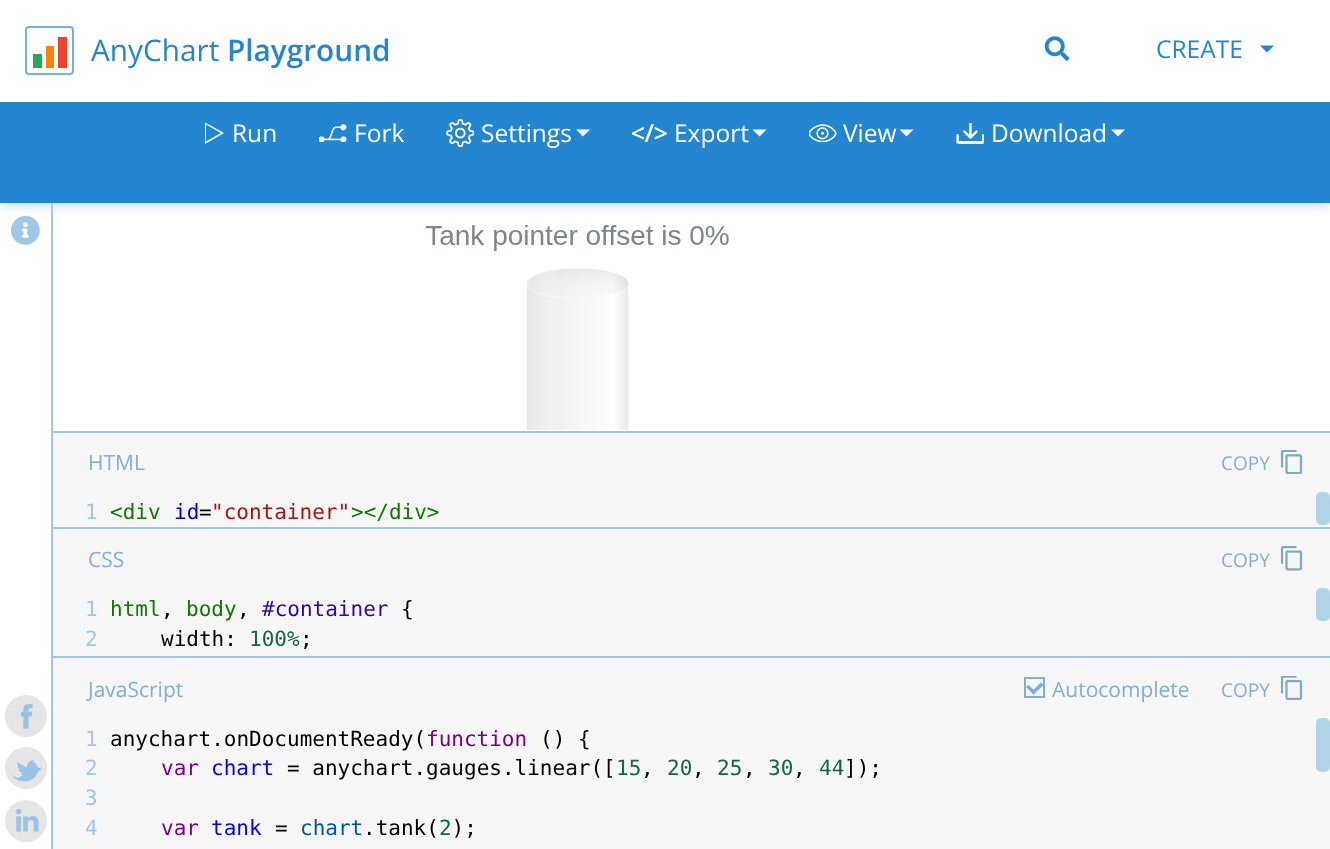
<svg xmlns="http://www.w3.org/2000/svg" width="1330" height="849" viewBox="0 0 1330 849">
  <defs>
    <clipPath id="clip1"><rect x="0" y="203" width="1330" height="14"/></clipPath>
    <filter id="blur1" x="-50%" y="-200%" width="200%" height="500%"><feGaussianBlur stdDeviation="7"/></filter>
  </defs>
  <rect width="100%" height="100%" fill="#ffffff"/>
  <rect x="51" y="203" width="2" height="646" fill="#9fc7e7"/>
  <image x="11" y="215" width="29" height="30" href="img7.png"/>
  <g clip-path="url(#clip1)">
    <rect x="0" y="0" width="1330" height="203" fill="#acd0ec" filter="url(#blur1)"/>
  </g>
  <rect x="26" y="27" width="47" height="47" rx="3" fill="none" stroke="#70b2e4" stroke-width="2"/>
  <rect x="33" y="54" width="9" height="14" fill="#26a957"/>
  <rect x="46" y="46" width="8" height="22" fill="#ff8207"/>
  <rect x="58" y="37" width="9" height="31" fill="#f0402e"/>
  <text x="91" y="61" font-family="Open Sans" font-size="29.75" fill="#2485d0">AnyChart</text>
  <text x="227" y="61" font-family="Open Sans" font-size="29.75" font-weight="600" fill="#2485d0">Playground</text>
  <image x="1044" y="36" width="26" height="25" href="img1.png"/>
  <text x="1156" y="58" font-family="Open Sans" font-size="24.5" fill="#2485d0">CREATE</text>
  <path d="M1260 45.5H1274L1267 52.5Z" fill="#2485d0"/>
  <rect x="0" y="102" width="1330" height="101" fill="#2485d0"/>
  <path d="M205 144V122.5L224 133ZM206 141.5L221 133L206 124.5Z" fill="#ffffff"/>
  <text x="232" y="142" font-family="Open Sans" font-size="24.5" fill="#ffffff">Run</text>
  <image x="319" y="124" width="28" height="18" href="img2.png"/>
  <text x="354" y="142" font-family="Open Sans" font-size="24.5" fill="#ffffff">Fork</text>
  <image x="446" y="119" width="28" height="28" href="img3.png"/>
  <text x="481" y="142" font-family="Open Sans" font-size="24.5" fill="#ffffff">Settings</text>
  <path d="M576 129.5H590L583 136.5Z" fill="#ffffff"/>
  <image x="632" y="124" width="35" height="18" href="img4.png"/>
  <text x="674" y="142" font-family="Open Sans" font-size="24.5" fill="#ffffff">Export</text>
  <path d="M752.5 129.5H766.5L759.5 136.5Z" fill="#ffffff"/>
  <image x="809" y="124" width="28" height="18" href="img5.png"/>
  <text x="843" y="142" font-family="Open Sans" font-size="24.5" fill="#ffffff">View</text>
  <path d="M899.5 129.5H913.5L906.5 136.5Z" fill="#ffffff"/>
  <image x="956" y="123" width="28" height="21" href="img6.png"/>
  <text x="991" y="142" font-family="Open Sans" font-size="24.5" fill="#ffffff">Download</text>
  <path d="M1111 129.5H1125L1118 136.5Z" fill="#ffffff"/>
  <circle cx="26" cy="716" r="21" fill="#e5e5e5"/>
  <image x="21" y="704" width="12" height="25" href="img8.png"/>
  <circle cx="26" cy="768" r="21" fill="#e5e5e5"/>
  <image x="12" y="759" width="30" height="23" href="img9.png"/>
  <circle cx="26" cy="821" r="21" fill="#e5e5e5"/>
  <image x="15" y="808" width="24" height="24" href="img10.png"/>
  <image x="425" y="225" width="304" height="205" href="img11.png"/>
  <rect x="53" y="431" width="1277" height="2" fill="#9fc7e7"/>
  <rect x="53" y="433" width="1277" height="94" fill="#f6f6f6"/>
  <text x="88" y="470" font-family="Open Sans" font-size="21" fill="#81afd5">HTML</text>
  <text x="1221" y="470" font-family="Open Sans" font-size="19" fill="#81afd5">COPY</text>
  <image x="1280" y="450" width="23" height="24" href="img12.png"/>
  <text x="85" y="519" font-family="DejaVu Sans Mono" font-size="21" fill="#9fc7e7">1</text>
  <text x="110" y="519" font-family="DejaVu Sans Mono" font-size="21" fill="#117700">&lt;div</text>
  <text x="174" y="519" font-family="DejaVu Sans Mono" font-size="21" fill="#0000cc">id</text>
  <text x="199" y="519" font-family="DejaVu Sans Mono" font-size="21" fill="#000000">=</text>
  <text x="211" y="519" font-family="DejaVu Sans Mono" font-size="21" fill="#aa1111">"container"</text>
  <text x="351" y="519" font-family="DejaVu Sans Mono" font-size="21" fill="#117700">&gt;&lt;/div&gt;</text>
  <rect x="1316" y="492" width="14" height="33" rx="5" fill="#b0d5e6"/>
  <rect x="53" y="527" width="1277" height="2" fill="#9fc7e7"/>
  <rect x="53" y="529" width="1277" height="127" fill="#f6f6f6"/>
  <text x="88" y="567" font-family="Open Sans" font-size="21" fill="#81afd5">CSS</text>
  <text x="1221" y="567" font-family="Open Sans" font-size="19" fill="#81afd5">COPY</text>
  <image x="1280" y="546" width="23" height="25" href="img13.png"/>
  <text x="85" y="616" font-family="DejaVu Sans Mono" font-size="21" fill="#9fc7e7">1</text>
  <text x="110" y="616" font-family="DejaVu Sans Mono" font-size="21" fill="#117700">html</text>
  <text x="161" y="616" font-family="DejaVu Sans Mono" font-size="21" fill="#000000">,</text>
  <text x="186" y="616" font-family="DejaVu Sans Mono" font-size="21" fill="#117700">body</text>
  <text x="237" y="616" font-family="DejaVu Sans Mono" font-size="21" fill="#000000">,</text>
  <text x="262" y="616" font-family="DejaVu Sans Mono" font-size="21" fill="#3300aa">#container</text>
  <text x="401" y="616" font-family="DejaVu Sans Mono" font-size="21" fill="#000000">{</text>
  <text x="85" y="646" font-family="DejaVu Sans Mono" font-size="21" fill="#9fc7e7">2</text>
  <text x="161" y="646" font-family="DejaVu Sans Mono" font-size="21" fill="#000000">width:</text>
  <text x="249" y="646" font-family="DejaVu Sans Mono" font-size="21" fill="#116644">100%</text>
  <text x="300" y="646" font-family="DejaVu Sans Mono" font-size="21" fill="#000000">;</text>
  <rect x="1316" y="588" width="14" height="33" rx="5" fill="#b0d5e6"/>
  <rect x="53" y="656" width="1277" height="2" fill="#9fc7e7"/>
  <rect x="53" y="658" width="1277" height="191" fill="#f6f6f6"/>
  <text x="88" y="697" font-family="Open Sans" font-size="21" fill="#81afd5">JavaScript</text>
  <rect x="1025" y="678" width="19" height="19" fill="none" stroke="#81afd5" stroke-width="2"/>
  <path d="M1031 692L1041 682.5L1043.5 685L1033.5 694.5Z" fill="#81afd5"/>
  <path d="M1026 687L1028.5 685L1036 692L1033.5 694.5Z" fill="#81afd5"/>
  <text x="1052" y="697" font-family="Open Sans" font-size="21" fill="#81afd5">Autocomplete</text>
  <text x="1221" y="697" font-family="Open Sans" font-size="19" fill="#81afd5">COPY</text>
  <image x="1280" y="676" width="23" height="24" href="img14.png"/>
  <text x="85" y="746" font-family="DejaVu Sans Mono" font-size="21" fill="#9fc7e7">1</text>
  <text x="110" y="746" font-family="DejaVu Sans Mono" font-size="21" fill="#000000">anychart.onDocumentReady(</text>
  <text x="426" y="746" font-family="DejaVu Sans Mono" font-size="21" fill="#770088">function</text>
  <text x="540" y="746" font-family="DejaVu Sans Mono" font-size="21" fill="#000000">() {</text>
  <text x="85" y="775" font-family="DejaVu Sans Mono" font-size="21" fill="#9fc7e7">2</text>
  <text x="161" y="775" font-family="DejaVu Sans Mono" font-size="21" fill="#770088">var</text>
  <text x="211" y="775" font-family="DejaVu Sans Mono" font-size="21" fill="#0000ff">chart</text>
  <text x="287" y="775" font-family="DejaVu Sans Mono" font-size="21" fill="#000000">= anychart.gauges.linear([</text>
  <text x="616" y="775" font-family="DejaVu Sans Mono" font-size="21" fill="#116644">15</text>
  <text x="641" y="775" font-family="DejaVu Sans Mono" font-size="21" fill="#000000">,</text>
  <text x="667" y="775" font-family="DejaVu Sans Mono" font-size="21" fill="#116644">20</text>
  <text x="692" y="775" font-family="DejaVu Sans Mono" font-size="21" fill="#000000">,</text>
  <text x="717" y="775" font-family="DejaVu Sans Mono" font-size="21" fill="#116644">25</text>
  <text x="743" y="775" font-family="DejaVu Sans Mono" font-size="21" fill="#000000">,</text>
  <text x="768" y="775" font-family="DejaVu Sans Mono" font-size="21" fill="#116644">30</text>
  <text x="793" y="775" font-family="DejaVu Sans Mono" font-size="21" fill="#000000">,</text>
  <text x="819" y="775" font-family="DejaVu Sans Mono" font-size="21" fill="#116644">44</text>
  <text x="844" y="775" font-family="DejaVu Sans Mono" font-size="21" fill="#000000">]);</text>
  <text x="85" y="805" font-family="DejaVu Sans Mono" font-size="21" fill="#9fc7e7">3</text>
  <text x="85" y="835" font-family="DejaVu Sans Mono" font-size="21" fill="#9fc7e7">4</text>
  <text x="211" y="835" font-family="DejaVu Sans Mono" font-size="21" fill="#0000ff">tank</text>
  <text x="300" y="835" font-family="DejaVu Sans Mono" font-size="21" fill="#0055aa">chart</text>
  <text x="363" y="835" font-family="DejaVu Sans Mono" font-size="21" fill="#000000">.tank( );</text>
  <text x="161" y="835" font-family="DejaVu Sans Mono" font-size="21" fill="#770088">var</text>
  <text x="275" y="835" font-family="DejaVu Sans Mono" font-size="21" fill="#000000">=</text>
  <text x="439" y="835" font-family="DejaVu Sans Mono" font-size="21" fill="#116644">2</text>
  <rect x="1316" y="718" width="14" height="54" rx="5" fill="#b0d5e6"/>
</svg>
